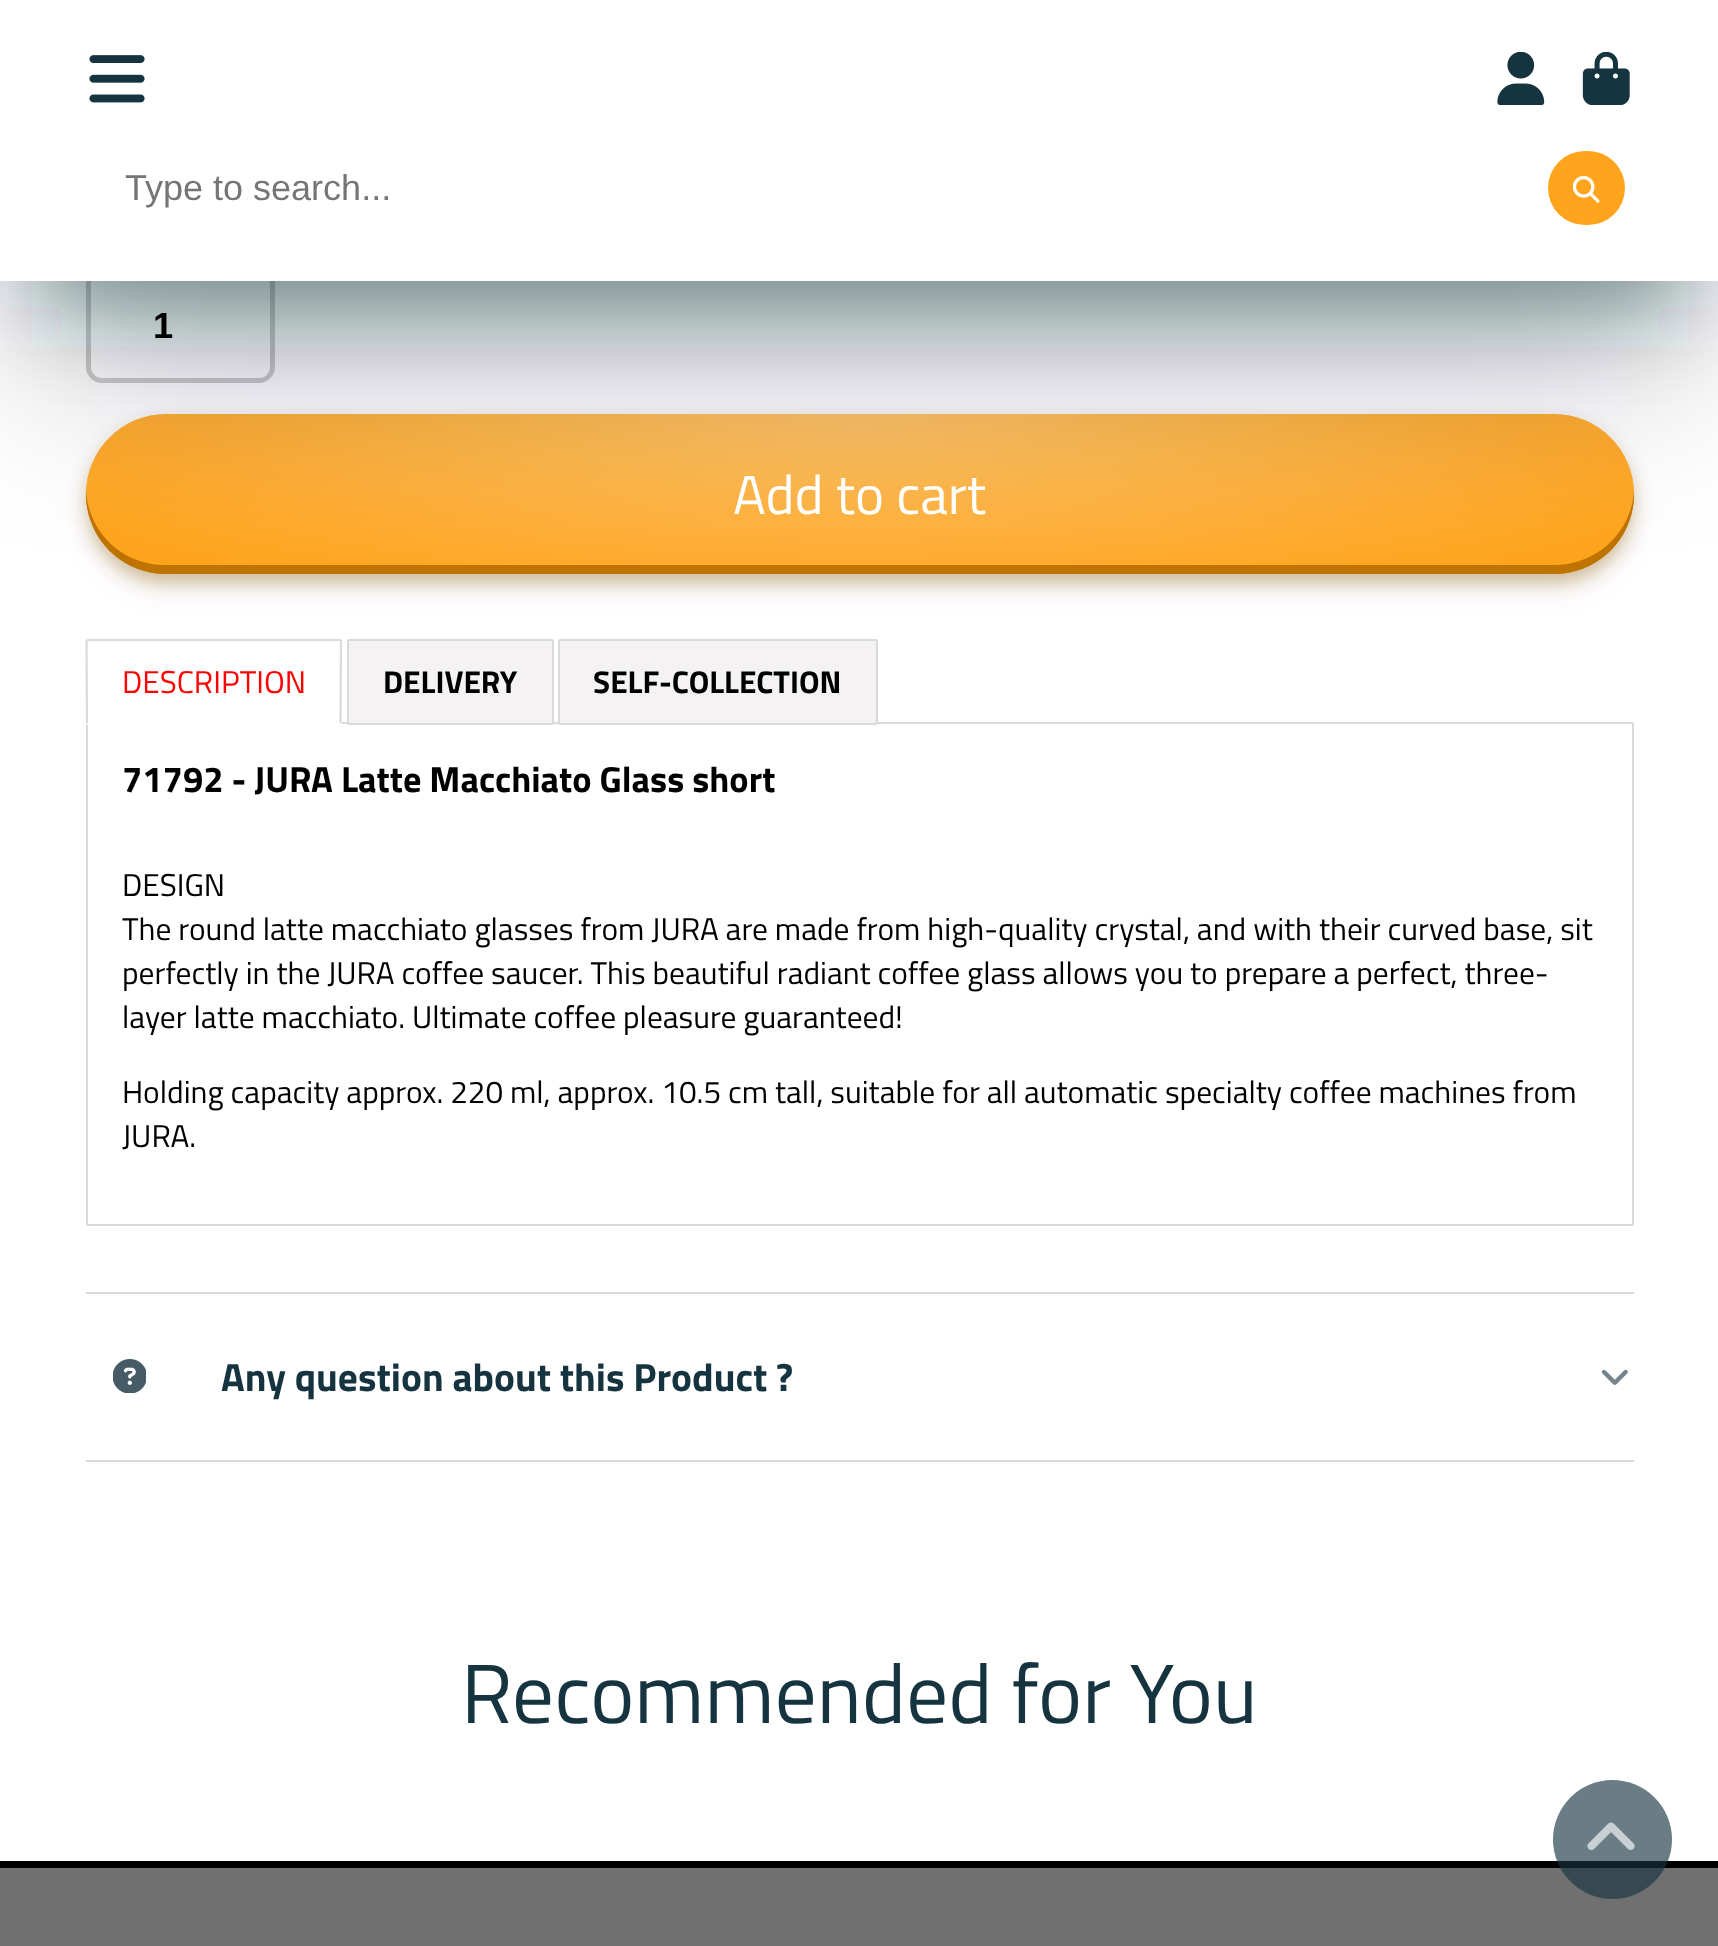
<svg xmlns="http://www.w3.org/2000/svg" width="1718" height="1946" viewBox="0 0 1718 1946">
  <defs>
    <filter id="blur1" x="-50%" y="-200%" width="200%" height="500%"><feGaussianBlur stdDeviation="16.5"/></filter>
    <filter id="blur2" x="-50%" y="-200%" width="200%" height="500%"><feGaussianBlur stdDeviation="8.5"/></filter>
    <clipPath id="clip1"><rect x="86" y="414" width="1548" height="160" rx="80"/></clipPath>
    <radialGradient id="g1" gradientUnits="userSpaceOnUse" cx="0" cy="0" r="1" gradientTransform="matrix(1095 0 0 226 860 414)"><stop offset="0" stop-color="#ffc369"/><stop offset="0.9" stop-color="#ffa41c"/></radialGradient>
    <filter id="blur3" x="-50%" y="-200%" width="200%" height="500%"><feGaussianBlur stdDeviation="43.5"/></filter>
    <filter id="blur4" x="-50%" y="-200%" width="200%" height="500%"><feGaussianBlur stdDeviation="98.5"/></filter>
  </defs>
  <rect width="100%" height="100%" fill="#ffffff"/>
  <rect x="88.5" y="270.5" width="184" height="110" rx="13.5" fill="none" stroke="#cccccc" stroke-width="5"/>
  <rect x="95" y="439" width="1530" height="144" rx="72" fill="#824e00" fill-opacity="0.15" filter="url(#blur1)"/>
  <rect x="86" y="423" width="1548" height="160" rx="80" fill="#824e00" fill-opacity="0.3" filter="url(#blur2)"/>
  <g clip-path="url(#clip1)">
    <rect x="95" y="439" width="1530" height="144" rx="72" fill="#824e00" fill-opacity="0.15" filter="url(#blur1)"/>
    <rect x="86" y="423" width="1548" height="160" rx="80" fill="#824e00" fill-opacity="0.3" filter="url(#blur2)"/>
  </g>
  <rect x="86" y="414" width="1548" height="160" rx="80" fill="url(#g1)"/>
  <rect x="32" y="90" width="1656" height="218" fill="#0f242d" fill-opacity="0.4" filter="url(#blur3)"/>
  <path d="M86 490C84 536 120 574 166 574H1554C1600 574 1636 536 1634 490C1632 532 1597 565 1554 565H165C122 565 88 532 86 490Z" fill="#bf7300"/>
  <rect x="87" y="723" width="1546" height="502" rx="1" fill="none" stroke="#dbdada" stroke-width="2"/>
  <rect x="86" y="639" width="256" height="86" rx="2" fill="#ffffff"/>
  <path d="M87 723L86.5 641L88 640H340L341 641L340.5 723" fill="none" stroke="#dbdada" stroke-width="2.2"/>
  <rect x="348" y="640" width="205" height="84" rx="1" fill="#f4f2f2" stroke="#dbdada" stroke-width="2"/>
  <rect x="559" y="640" width="318" height="84" rx="1" fill="#f4f2f2" stroke="#dbdada" stroke-width="2"/>
  <rect x="32" y="131" width="1656" height="218" fill="#0f242d" fill-opacity="0.3" filter="url(#blur4)"/>
  <rect x="0" y="0" width="1718" height="281" fill="#ffffff"/>
  <image x="89" y="55" width="56" height="48" href="img1.png"/>
  <image x="1497" y="52" width="48" height="53" href="img2.png"/>
  <image x="1582" y="52" width="48" height="53" href="img3.png"/>
  <text x="125" y="200" font-family="Liberation Sans" font-size="36" fill="#757575">Type to search...</text>
  <rect x="1548" y="151" width="77" height="74" rx="37" fill="#ffa41c"/>
  <image x="1573" y="176" width="27" height="27" href="img4.png"/>
  <text x="153" y="338" font-family="Liberation Sans" font-size="36.25" font-weight="bold" fill="#000000">1</text>
  <text x="733" y="514" font-family="Titillium Web" font-size="55" fill="#ffffff">Add to cart</text>
  <text x="122" y="693" font-family="Titillium Web" font-size="31.5" fill="#ff0303">DESCRIPTION</text>
  <text x="383" y="693" font-family="Titillium Web" font-size="31.5" font-weight="bold" fill="#000000">DELIVERY</text>
  <text x="593" y="693" font-family="Titillium Web" font-size="31.5" font-weight="bold" fill="#000000">SELF-COLLECTION</text>
  <text x="122" y="792" font-family="Titillium Web" font-size="36.25" font-weight="bold" fill="#000000">71792 - JURA Latte Macchiato Glass short</text>
  <text x="122" y="896" font-family="Titillium Web" font-size="31.5" fill="#000000">DESIGN</text>
  <text x="122" y="940" font-family="Titillium Web" font-size="31.5" fill="#000000">The round latte macchiato glasses from JURA are made from high-quality crystal, and with their curved base, sit</text>
  <text x="122" y="984" font-family="Titillium Web" font-size="31.5" fill="#000000">perfectly in the JURA coffee saucer. This beautiful radiant coffee glass allows you to prepare a perfect, three-</text>
  <text x="122" y="1028" font-family="Titillium Web" font-size="31.5" fill="#000000">layer latte macchiato. Ultimate coffee pleasure guaranteed!</text>
  <text x="122" y="1103" font-family="Titillium Web" font-size="31.5" fill="#000000">Holding capacity approx. 220 ml, approx. 10.5 cm tall, suitable for all automatic specialty coffee machines from</text>
  <text x="122" y="1147" font-family="Titillium Web" font-size="31.5" fill="#000000">JURA.</text>
  <rect x="86" y="1292" width="1548" height="2" fill="#d9d9d9"/>
  <rect x="86" y="1460" width="1548" height="2" fill="#d9d9d9"/>
  <image x="113" y="1359" width="33" height="34" href="img5.png"/>
  <text x="221" y="1391" font-family="Titillium Web" font-size="39.4" font-weight="bold" fill="#163340">Any question about this Product ?</text>
  <image x="1601" y="1369" width="27" height="16" href="img6.png"/>
  <text x="461" y="1723" font-family="Titillium Web" font-size="83.75" fill="#163340">Recommended for You</text>
  <rect x="0" y="1868" width="1718" height="78" fill="#707070"/>
  <rect x="0" y="1861" width="1718" height="7" fill="#000000"/>
  <circle cx="1612.5" cy="1839.5" r="59.5" fill="#163340" fill-opacity="0.64"/>
  <image x="1587" y="1822" width="48" height="28" href="img7.png"/>
</svg>
